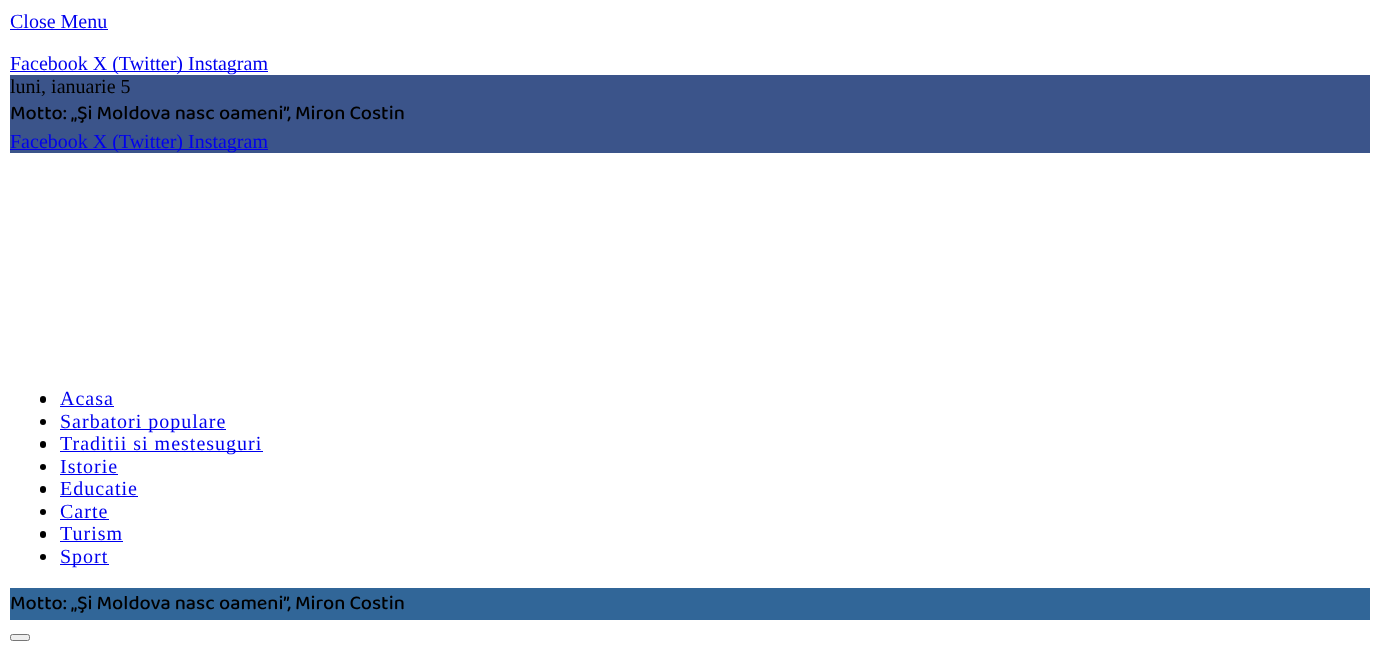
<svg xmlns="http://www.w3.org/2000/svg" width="1380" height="661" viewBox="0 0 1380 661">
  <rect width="100%" height="100%" fill="#ffffff"/>
  <text x="10" y="28" font-family="Liberation Serif" font-size="20" fill="#0000ee">Close Menu</text>
  <rect x="10" y="29" width="98" height="1" fill="#0000ee"/>
  <rect x="10" y="71" width="258" height="1" fill="#0000ee"/>
  <text x="10" y="70" font-family="Liberation Serif" font-size="20" fill="#0000ee">Facebook X (Twitter) Instagram</text>
  <rect x="10" y="75" width="1360" height="78" fill="#3b548a"/>
  <text x="10" y="93" font-family="Liberation Serif" font-size="20" fill="#000000">luni, ianuarie 5</text>
  <text x="10" y="119" font-family="'Baloo Bhai 2'" font-size="20" font-weight="500" fill="#000000">Motto: „Şi Moldova nasc oameni”, Miron Costin</text>
  <rect x="10" y="149" width="258" height="1" fill="#0000ee"/>
  <text x="10" y="148" font-family="Liberation Serif" font-size="20" fill="#0000ee">Facebook X (Twitter) Instagram</text>
  <rect x="40" y="396" width="6" height="7" rx="3" fill="#000000"/>
  <text x="60" y="405" font-family="Liberation Serif" font-size="20" letter-spacing="1" fill="#0000ee">Acasa</text>
  <rect x="60" y="406" width="54" height="1" fill="#0000ee"/>
  <circle cx="43" cy="422" r="3" fill="#000000"/>
  <rect x="60" y="429" width="166" height="1" fill="#0000ee"/>
  <text x="60" y="428" font-family="Liberation Serif" font-size="20" letter-spacing="1" fill="#0000ee">Sarbatori populare</text>
  <rect x="40" y="441" width="6" height="7" rx="3" fill="#000000"/>
  <rect x="60" y="451" width="203" height="1" fill="#0000ee"/>
  <text x="60" y="450" font-family="Liberation Serif" font-size="20" letter-spacing="1" fill="#0000ee">Traditii si mestesuguri</text>
  <circle cx="43" cy="467" r="3" fill="#000000"/>
  <text x="60" y="473" font-family="Liberation Serif" font-size="20" letter-spacing="1" fill="#0000ee">Istorie</text>
  <rect x="60" y="474" width="58" height="1" fill="#0000ee"/>
  <rect x="40" y="486" width="6" height="7" rx="3" fill="#000000"/>
  <text x="60" y="495" font-family="Liberation Serif" font-size="20" letter-spacing="1" fill="#0000ee">Educatie</text>
  <rect x="60" y="496" width="78" height="1" fill="#0000ee"/>
  <circle cx="43" cy="512" r="3" fill="#000000"/>
  <text x="60" y="518" font-family="Liberation Serif" font-size="20" letter-spacing="1" fill="#0000ee">Carte</text>
  <rect x="60" y="519" width="49" height="1" fill="#0000ee"/>
  <rect x="40" y="531" width="6" height="7" rx="3" fill="#000000"/>
  <text x="60" y="540" font-family="Liberation Serif" font-size="20" letter-spacing="1" fill="#0000ee">Turism</text>
  <rect x="60" y="541" width="63" height="1" fill="#0000ee"/>
  <circle cx="43" cy="557" r="3" fill="#000000"/>
  <rect x="60" y="564" width="49" height="1" fill="#0000ee"/>
  <text x="60" y="563" font-family="Liberation Serif" font-size="20" letter-spacing="1" fill="#0000ee">Sport</text>
  <rect x="10" y="588" width="1360" height="32" fill="#316698"/>
  <text x="10" y="609" font-family="'Baloo Bhai 2'" font-size="20" font-weight="500" fill="#000000">Motto: „Şi Moldova nasc oameni”, Miron Costin</text>
  <rect x="10.5" y="634.5" width="19" height="6" rx="2" fill="#efefef" stroke="#767676"/>
</svg>
